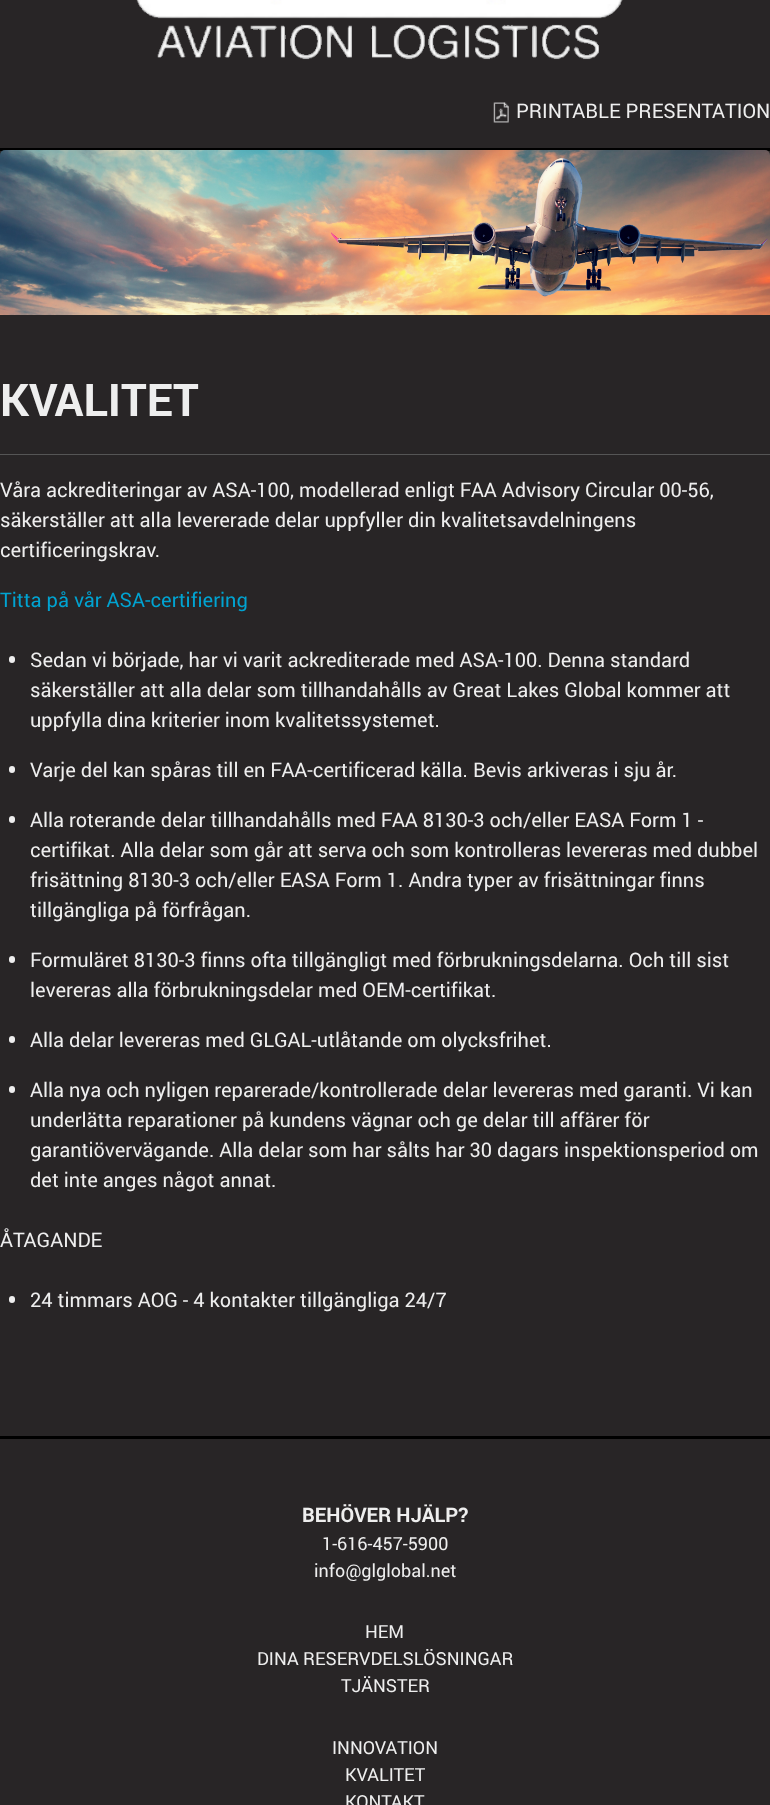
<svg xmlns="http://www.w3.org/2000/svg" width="770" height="1805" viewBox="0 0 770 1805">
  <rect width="100%" height="100%" fill="#282526"/>
  <rect x="0" y="148" width="770" height="3" fill="#000000"/>
  <image x="136" y="0" width="487" height="60" href="img1.png"/>
  <image x="493" y="102" width="16" height="21" href="img2.png"/>
  <text x="516" y="118" font-family="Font" font-size="20" fill="#eeeeee">PRINTABLE PRESENTATION</text>
  <image x="0" y="150" width="770" height="165" href="img3.png"/>
  <rect x="0" y="454" width="770" height="1" fill="#555555"/>
  <text x="0" y="416" font-family="Font" font-size="45" font-weight="bold" fill="#eeeeee">KVALITET</text>
  <text x="0" y="497" font-family="Font" font-size="20" fill="#eeeeee">Våra ackrediteringar av ASA-100, modellerad enligt FAA Advisory Circular 00-56,</text>
  <text x="0" y="527" font-family="Font" font-size="20" fill="#eeeeee">säkerställer att alla levererade delar uppfyller din kvalitetsavdelningens</text>
  <text x="0" y="557" font-family="Font" font-size="20" fill="#eeeeee">certificeringskrav.</text>
  <text x="0" y="607" font-family="Font" font-size="20" fill="#01a3d1">Titta på vår ASA-certifiering</text>
  <rect x="9" y="656" width="6" height="7" rx="3" fill="#eeeeee"/>
  <text x="30" y="667" font-family="Font" font-size="20" fill="#eeeeee">Sedan vi började, har vi varit ackrediterade med ASA-100. Denna standard</text>
  <text x="30" y="697" font-family="Font" font-size="20" fill="#eeeeee">säkerställer att alla delar som tillhandahålls av Great Lakes Global kommer att</text>
  <text x="30" y="727" font-family="Font" font-size="20" fill="#eeeeee">uppfylla dina kriterier inom kvalitetssystemet.</text>
  <rect x="9" y="766" width="6" height="7" rx="3" fill="#eeeeee"/>
  <text x="30" y="777" font-family="Font" font-size="20" fill="#eeeeee">Varje del kan spåras till en FAA-certificerad källa. Bevis arkiveras i sju år.</text>
  <rect x="9" y="816" width="6" height="7" rx="3" fill="#eeeeee"/>
  <text x="30" y="827" font-family="Font" font-size="20" fill="#eeeeee">Alla roterande delar tillhandahålls med FAA 8130-3 och/eller EASA Form 1 -</text>
  <text x="30" y="857" font-family="Font" font-size="20" fill="#eeeeee">certifikat. Alla delar som går att serva och som kontrolleras levereras med dubbel</text>
  <text x="30" y="887" font-family="Font" font-size="20" fill="#eeeeee">frisättning 8130-3 och/eller EASA Form 1. Andra typer av frisättningar finns</text>
  <text x="30" y="917" font-family="Font" font-size="20" fill="#eeeeee">tillgängliga på förfrågan.</text>
  <rect x="9" y="956" width="6" height="7" rx="3" fill="#eeeeee"/>
  <text x="30" y="967" font-family="Font" font-size="20" fill="#eeeeee">Formuläret 8130-3 finns ofta tillgängligt med förbrukningsdelarna. Och till sist</text>
  <text x="30" y="997" font-family="Font" font-size="20" fill="#eeeeee">levereras alla förbrukningsdelar med OEM-certifikat.</text>
  <rect x="9" y="1036" width="6" height="7" rx="3" fill="#eeeeee"/>
  <text x="30" y="1047" font-family="Font" font-size="20" fill="#eeeeee">Alla delar levereras med GLGAL-utlåtande om olycksfrihet.</text>
  <rect x="9" y="1086" width="6" height="7" rx="3" fill="#eeeeee"/>
  <text x="30" y="1097" font-family="Font" font-size="20" fill="#eeeeee">Alla nya och nyligen reparerade/kontrollerade delar levereras med garanti. Vi kan</text>
  <text x="30" y="1127" font-family="Font" font-size="20" fill="#eeeeee">underlätta reparationer på kundens vägnar och ge delar till affärer för</text>
  <text x="30" y="1157" font-family="Font" font-size="20" fill="#eeeeee">garantiövervägande. Alla delar som har sålts har 30 dagars inspektionsperiod om</text>
  <text x="30" y="1187" font-family="Font" font-size="20" fill="#eeeeee">det inte anges något annat.</text>
  <text x="0" y="1247" font-family="Font" font-size="20" fill="#eeeeee">ÅTAGANDE</text>
  <rect x="9" y="1296" width="6" height="7" rx="3" fill="#eeeeee"/>
  <text x="30" y="1307" font-family="Font" font-size="20" fill="#eeeeee">24 timmars AOG - 4 kontakter tillgängliga 24/7</text>
  <rect x="0" y="1436" width="770" height="3" fill="#000000"/>
  <text x="302" y="1522" font-family="Font" font-size="20" font-weight="bold" fill="#eeeeee">BEHÖVER HJÄLP?</text>
  <text x="322" y="1550" font-family="Font" font-size="18" fill="#eeeeee">1-616-457-5900</text>
  <text x="314" y="1577" font-family="Font" font-size="18" fill="#eeeeee">info@glglobal.net</text>
  <text x="365" y="1638" font-family="Font" font-size="18" fill="#eeeeee">HEM</text>
  <text x="257" y="1665" font-family="Font" font-size="18" fill="#eeeeee">DINA RESERVDELSLÖSNINGAR</text>
  <text x="341" y="1692" font-family="Font" font-size="18" fill="#eeeeee">TJÄNSTER</text>
  <text x="332" y="1754" font-family="Font" font-size="18" fill="#eeeeee">INNOVATION</text>
  <text x="345" y="1781" font-family="Font" font-size="18" fill="#eeeeee">KVALITET</text>
  <text x="345" y="1808" font-family="Font" font-size="18" fill="#eeeeee">KONTAKT</text>
</svg>
